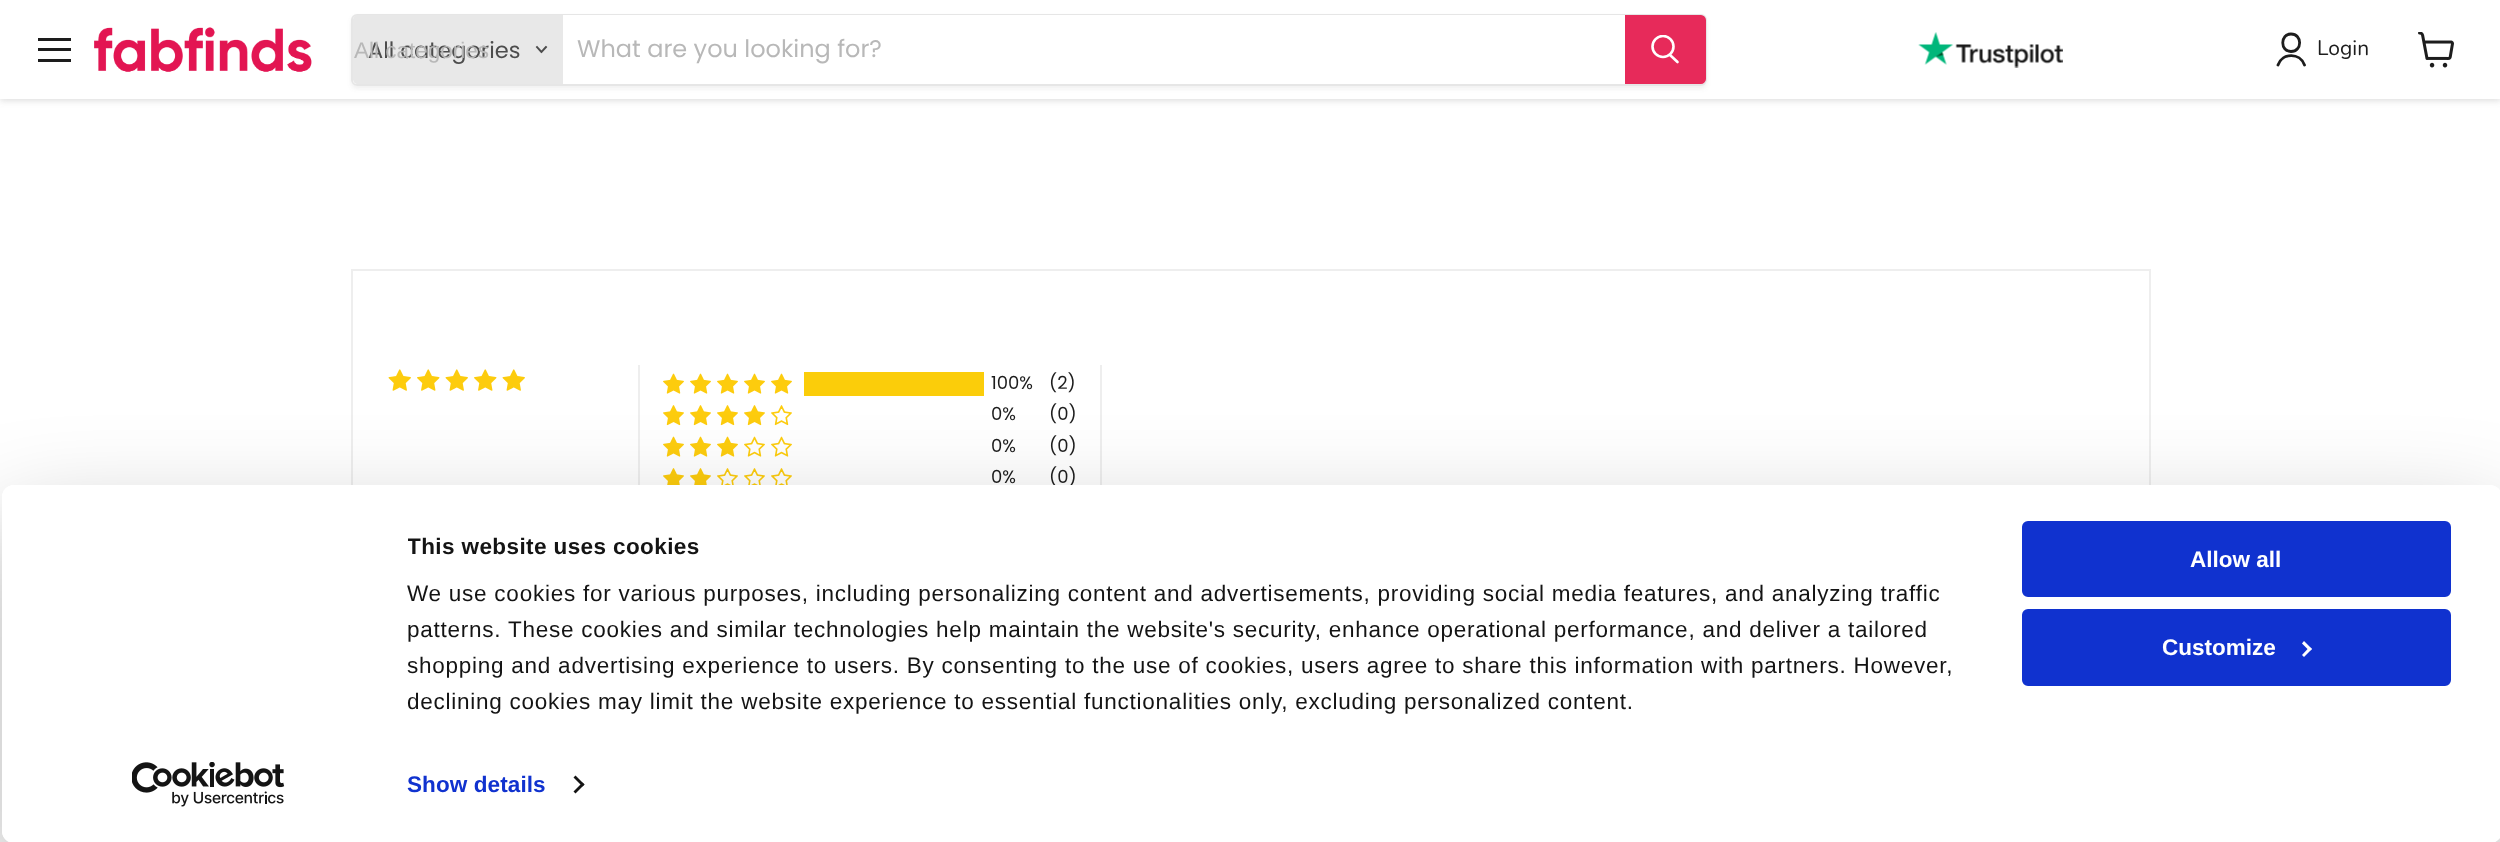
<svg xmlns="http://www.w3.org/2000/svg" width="2500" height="842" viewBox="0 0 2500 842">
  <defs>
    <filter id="blur1" x="-50%" y="-200%" width="200%" height="500%"><feGaussianBlur stdDeviation="3"/></filter>
    <clipPath id="clip1"><path d="M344 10H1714V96H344ZM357 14H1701C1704.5 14 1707 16.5 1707 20V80C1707 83.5 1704.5 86 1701 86H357C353.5 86 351 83.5 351 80V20C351 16.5 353.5 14 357 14Z" clip-rule="evenodd"/></clipPath>
    <filter id="blur2" x="-50%" y="-200%" width="200%" height="500%"><feGaussianBlur stdDeviation="2"/></filter>
    <clipPath id="clip2"><rect x="1650" y="35" width="30" height="31"/></clipPath>
    <clipPath id="clip3"><path d="M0 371H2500V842H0ZM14 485H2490C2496.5 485 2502 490.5 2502 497V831C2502 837.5 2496.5 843 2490 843H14C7.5 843 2 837.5 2 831V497C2 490.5 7.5 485 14 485Z" clip-rule="evenodd"/></clipPath>
    <filter id="blur3" x="-50%" y="-200%" width="200%" height="500%"><feGaussianBlur stdDeviation="52.5"/></filter>
    <clipPath id="clip4"><rect x="408" y="530" width="1572" height="190"/></clipPath>
  </defs>
  <rect width="100%" height="100%" fill="#ffffff"/>
  <rect x="0" y="2" width="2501" height="99" fill="#808080" fill-opacity="0.25" filter="url(#blur1)"/>
  <rect x="0" y="0" width="2500" height="99" fill="#ffffff"/>
  <rect x="38" y="38" width="33" height="3" fill="#1d1d1d"/>
  <rect x="38" y="48" width="33" height="3" fill="#1d1d1d"/>
  <rect x="38" y="59" width="33" height="3" fill="#1d1d1d"/>
  <image x="94" y="27" width="218" height="45" href="img1.png"/>
  <g clip-path="url(#clip1)">
    <rect x="351" y="17" width="1356" height="72" rx="6" fill="#808080" fill-opacity="0.11" filter="url(#blur2)"/>
  </g>
  <rect x="352" y="15" width="1354" height="70" rx="5" fill="none" stroke="#808080" stroke-opacity="0.2" stroke-width="2"/>
  <path d="M358 15H563V84H358C355 84 353 82 353 79V20C353 17 355 15 358 15Z" fill="#e8e8e8"/>
  <text x="368" y="58" font-family="Poppins" font-size="22.5" fill="#4d4d4d">All categories</text>
  <text x="354" y="58" font-family="Liberation Sans" font-size="22.5" fill="#b8b8b8">All categories</text>
  <path d="M541.5 52L546 47M541.5 52L537 47" fill="none" stroke="#4d4d4d" stroke-width="1.9" stroke-linecap="square"/>
  <rect x="563" y="15" width="1062" height="1" fill="#ffffff"/>
  <text x="577" y="57" font-family="Poppins" font-size="24" fill="#b8b8b8">What are you looking for?</text>
  <path d="M1626 16H1701C1703 16 1705 18 1705 20V79C1705 81 1703 83 1701 83H1626Z" fill="#e72a5a" stroke="#e72a5a" stroke-width="2"/>
  <path d="M1677.5 62L1670 55" fill="none" stroke="#ffffff" stroke-width="2.6" stroke-linecap="round"/>
  <g clip-path="url(#clip2)">
    <circle cx="1663" cy="46.5" r="10.5" fill="none" stroke="#ffffff" stroke-width="2.6"/>
  </g>
  <image x="1918" y="32" width="145" height="36" href="img2.png"/>
  <path d="M2291 51.5C2302.5 51.5 2302.5 34 2291 34C2280 34 2280 51.5 2291 51.5ZM2304.5 65C2300 52.5 2282.5 52.5 2278 65" fill="none" stroke="#1d1d1d" stroke-width="2.8" stroke-linecap="round" stroke-linejoin="round"/>
  <text x="2317" y="55" font-family="Nunito" font-size="21" fill="#1d1d1d">Login</text>
  <image x="2418" y="32" width="36" height="36" href="img3.png"/>
  <rect x="352" y="270" width="1798" height="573" fill="none" stroke="#eeeeee" stroke-width="2"/>
  <image x="388" y="369" width="23" height="22" href="img4.png"/>
  <image x="417" y="369" width="23" height="22" href="img5.png"/>
  <image x="445" y="369" width="23" height="22" href="img4.png"/>
  <image x="474" y="369" width="23" height="22" href="img5.png"/>
  <image x="502" y="369" width="23" height="22" href="img4.png"/>
  <rect x="1100" y="365" width="2" height="120" fill="#eeeeee"/>
  <rect x="638" y="365" width="2" height="120" fill="#eeeeee"/>
  <image x="663" y="373" width="21" height="21" href="img6.png"/>
  <image x="690" y="373" width="21" height="21" href="img6.png"/>
  <image x="717" y="373" width="21" height="21" href="img6.png"/>
  <image x="744" y="373" width="21" height="21" href="img6.png"/>
  <image x="771" y="373" width="21" height="21" href="img6.png"/>
  <rect x="804" y="372" width="180" height="24" fill="#fbcd0a"/>
  <text x="991" y="389" font-family="Poppins" font-size="18" fill="#1d1d1d">100%</text>
  <text x="1049" y="389" font-family="Poppins" font-size="18" fill="#1d1d1d">(2)</text>
  <image x="663" y="405" width="21" height="21" href="img7.png"/>
  <image x="690" y="405" width="21" height="21" href="img7.png"/>
  <image x="717" y="405" width="21" height="21" href="img7.png"/>
  <image x="744" y="405" width="21" height="21" href="img7.png"/>
  <image x="771" y="405" width="21" height="21" href="img8.png"/>
  <text x="991" y="420" font-family="Poppins" font-size="18" fill="#1d1d1d">0%</text>
  <text x="1049" y="420" font-family="Poppins" font-size="18" fill="#1d1d1d">(0)</text>
  <image x="663" y="436" width="21" height="21" href="img6.png"/>
  <image x="690" y="436" width="21" height="21" href="img6.png"/>
  <image x="717" y="436" width="21" height="21" href="img6.png"/>
  <image x="744" y="436" width="21" height="21" href="img9.png"/>
  <image x="771" y="436" width="21" height="21" href="img9.png"/>
  <text x="991" y="452" font-family="Poppins" font-size="18" fill="#1d1d1d">0%</text>
  <text x="1049" y="452" font-family="Poppins" font-size="18" fill="#1d1d1d">(0)</text>
  <image x="663" y="468" width="21" height="17" href="img10.png"/>
  <image x="690" y="468" width="21" height="17" href="img10.png"/>
  <image x="717" y="468" width="21" height="17" href="img11.png"/>
  <image x="744" y="468" width="21" height="17" href="img11.png"/>
  <image x="771" y="468" width="21" height="17" href="img11.png"/>
  <text x="991" y="483" font-family="Poppins" font-size="18" fill="#1d1d1d">0%</text>
  <text x="1049" y="483" font-family="Poppins" font-size="18" fill="#1d1d1d">(0)</text>
  <g clip-path="url(#clip3)">
    <rect x="2" y="530" width="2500" height="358" rx="12" fill="#000000" fill-opacity="0.3" filter="url(#blur3)"/>
  </g>
  <rect x="2" y="485" width="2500" height="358" rx="12" fill="#ffffff"/>
  <g clip-path="url(#clip4)">
    <text x="407" y="554" font-family="Liberation Sans" font-size="22.5" font-weight="bold" letter-spacing="0.4" fill="#141414">This website uses cookies</text>
  </g>
  <text x="407" y="601" font-family="Liberation Sans" font-size="22.5" letter-spacing="0.75" fill="#141414">We use cookies for various purposes, including personalizing content and advertisements, providing social media features, and analyzing traffic</text>
  <text x="407" y="637" font-family="Liberation Sans" font-size="22.5" letter-spacing="0.75" fill="#141414">patterns. These cookies and similar technologies help maintain the website's security, enhance operational performance, and deliver a tailored</text>
  <text x="407" y="673" font-family="Liberation Sans" font-size="22.5" letter-spacing="0.75" fill="#141414">shopping and advertising experience to users. By consenting to the use of cookies, users agree to share this information with partners. However,</text>
  <text x="407" y="709" font-family="Liberation Sans" font-size="22.5" letter-spacing="0.75" fill="#141414">declining cookies may limit the website experience to essential functionalities only, excluding personalized content.</text>
  <text x="407" y="792" font-family="Liberation Sans" font-size="22.5" font-weight="bold" letter-spacing="0.1" fill="#1032cf">Show details</text>
  <path d="M575.5 775.5L584.5 784.5L582.5 786.5L573.5 777.5Z" fill="#141414"/>
  <path d="M582.5 782.5L584.5 784.5L575.5 793.5L573.5 791.5Z" fill="#141414"/>
  <rect x="2023.5" y="522.5" width="426" height="73" rx="4.5" fill="#1032cf" stroke="#1032cf" stroke-width="3"/>
  <text x="2190" y="567" font-family="Liberation Sans" font-size="22.5" font-weight="bold" fill="#ffffff">Allow all</text>
  <rect x="2023.5" y="610.5" width="426" height="74" rx="4.5" fill="#1032cf" stroke="#1032cf" stroke-width="3"/>
  <text x="2162" y="655" font-family="Liberation Sans" font-size="22.5" font-weight="bold" fill="#ffffff">Customize</text>
  <path d="M2304 641L2312 649L2309.5 651L2302 643.5Z" fill="#ffffff"/>
  <path d="M2309.5 647L2312 649L2304 657L2302 655Z" fill="#ffffff"/>
  <image x="132" y="762" width="153" height="45" href="img12.png"/>
</svg>
